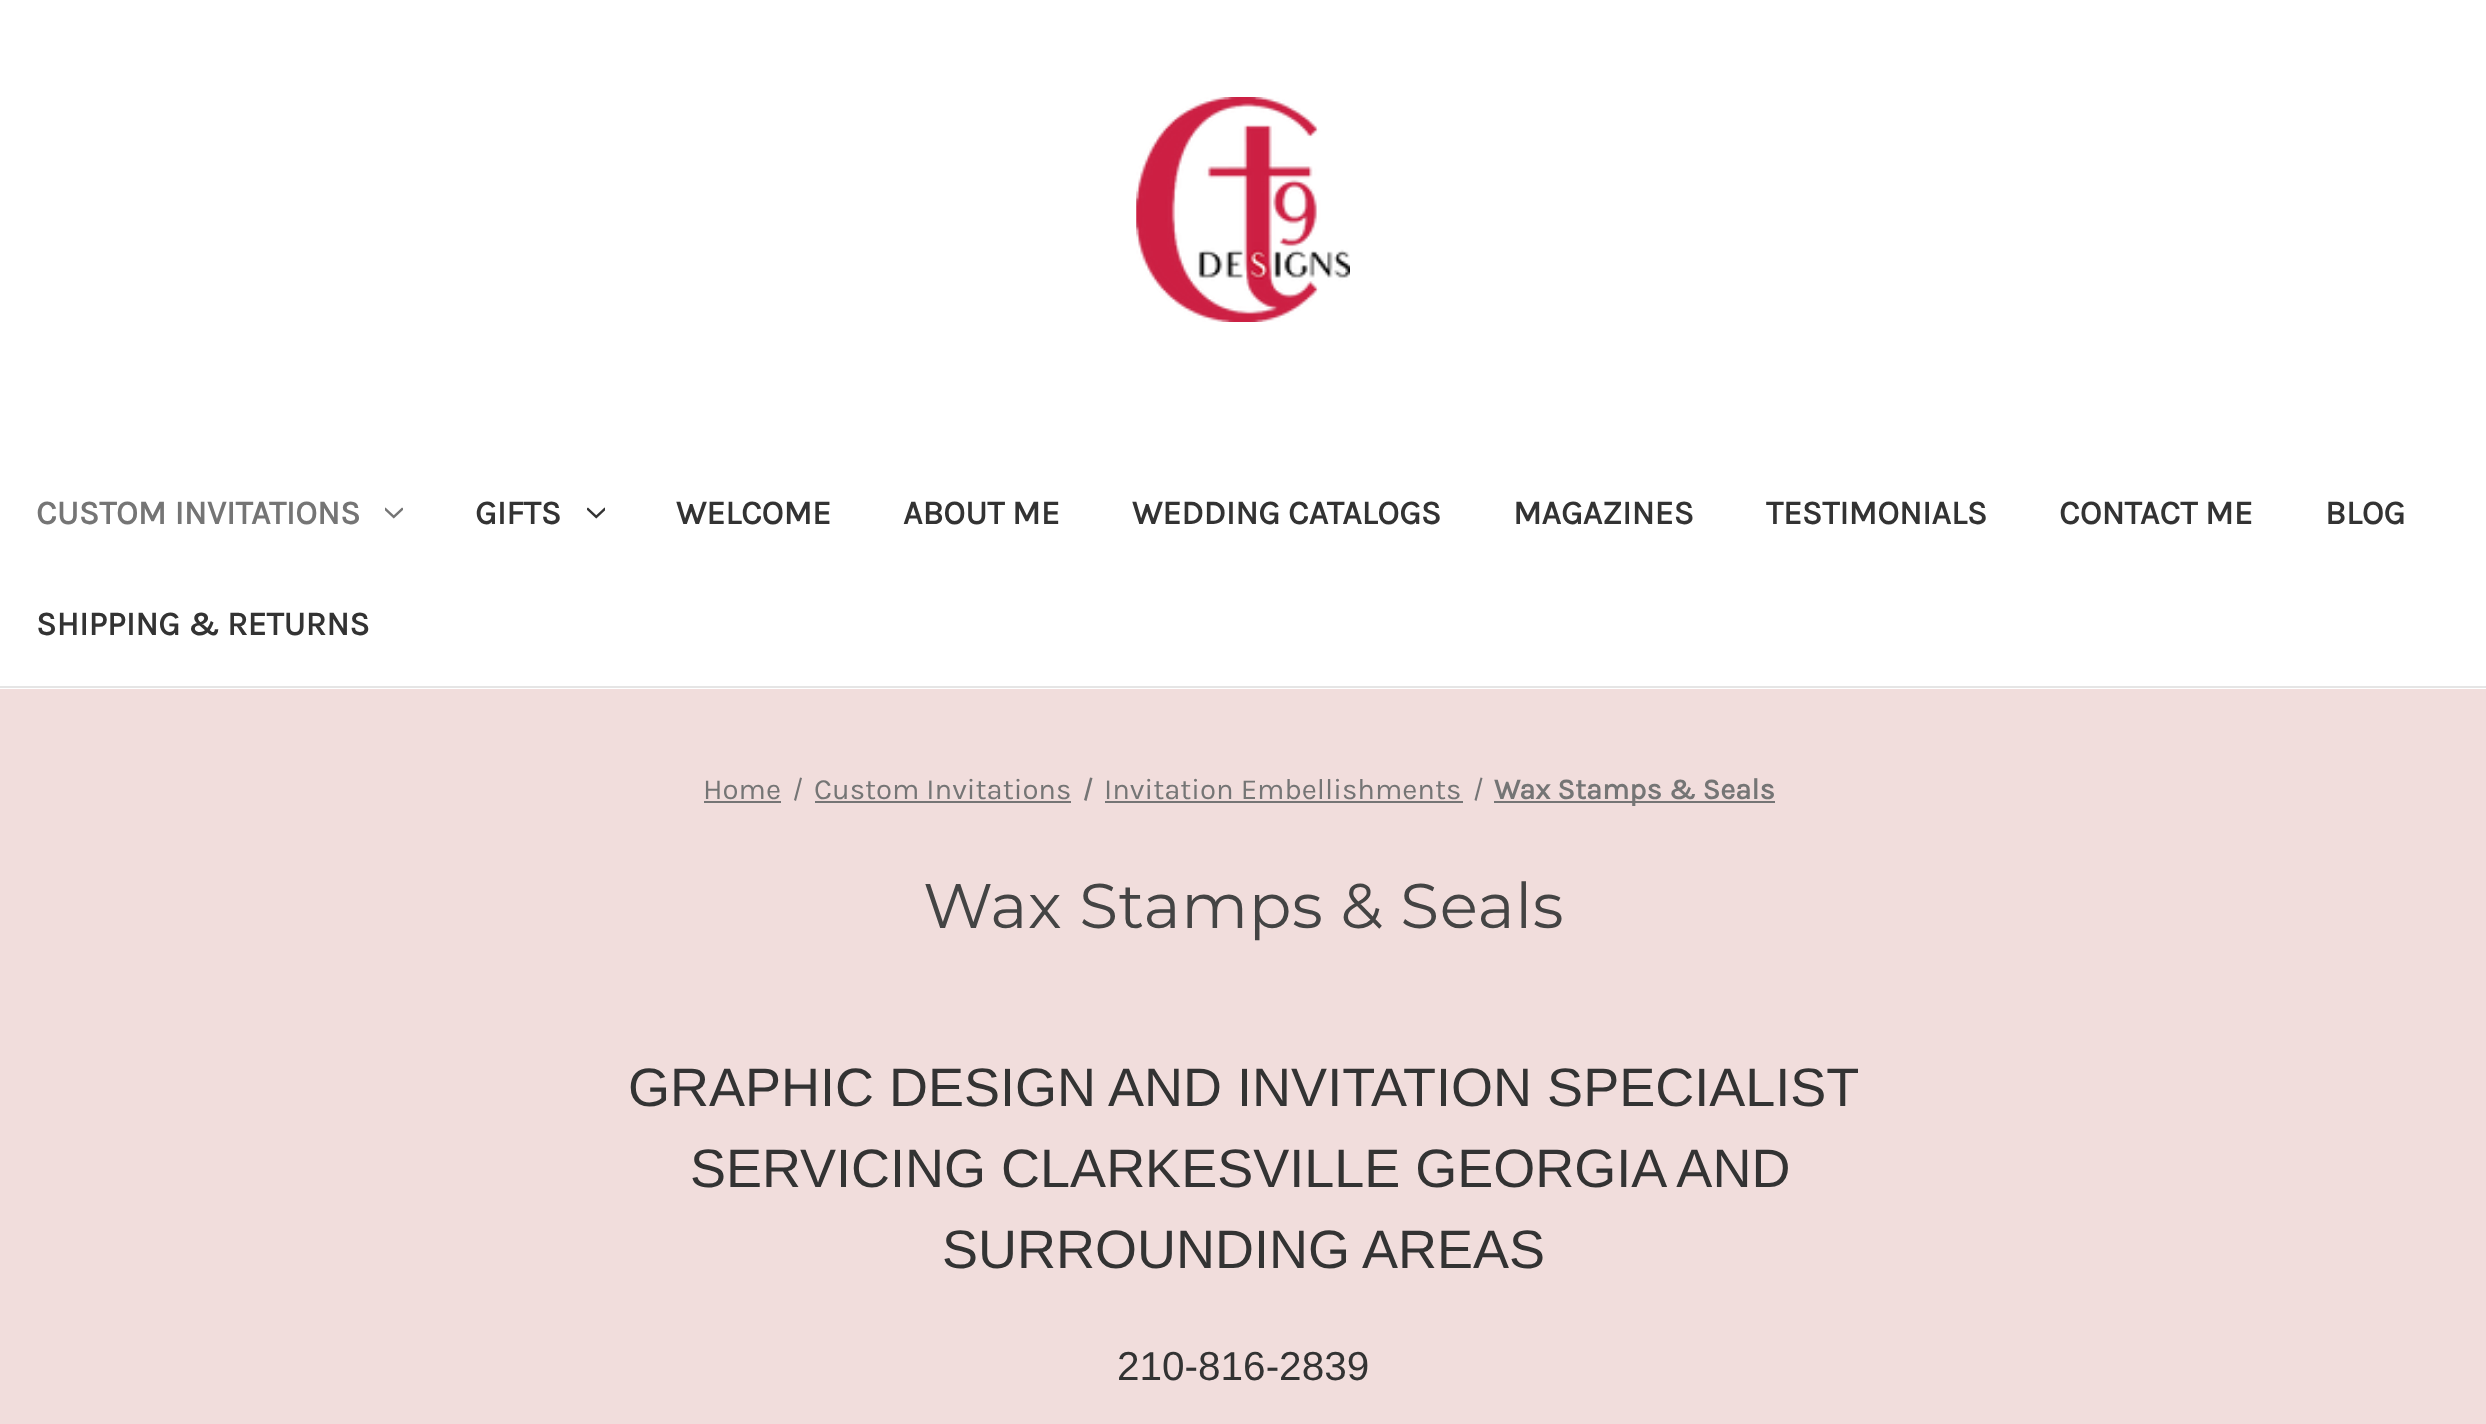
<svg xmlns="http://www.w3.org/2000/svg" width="2486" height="1424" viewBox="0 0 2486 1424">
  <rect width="100%" height="100%" fill="#f1dddc"/>
  <rect x="0" y="0" width="2486" height="689" fill="#ffffff"/>
  <rect x="0" y="686" width="2486" height="2" fill="#e5e5e5"/>
  <image x="1136" y="97" width="214" height="225" href="img1.png"/>
  <text x="36" y="524" font-family="Karla" font-size="33.75" font-weight="bold" fill="#757575">CUSTOM INVITATIONS</text>
  <image x="385" y="507" width="18" height="12" href="img2.png"/>
  <text x="475" y="524" font-family="Karla" font-size="33.75" font-weight="bold" fill="#333333">GIFTS</text>
  <image x="587" y="507" width="18" height="12" href="img3.png"/>
  <text x="676" y="524" font-family="Karla" font-size="33.75" font-weight="bold" fill="#333333">WELCOME</text>
  <text x="903" y="524" font-family="Karla" font-size="33.75" font-weight="bold" fill="#333333">ABOUT ME</text>
  <text x="1132" y="524" font-family="Karla" font-size="33.75" font-weight="bold" fill="#333333">WEDDING CATALOGS</text>
  <text x="1513" y="524" font-family="Karla" font-size="33.75" font-weight="bold" fill="#333333">MAGAZINES</text>
  <text x="1766" y="524" font-family="Karla" font-size="33.75" font-weight="bold" fill="#333333">TESTIMONIALS</text>
  <text x="2059" y="524" font-family="Karla" font-size="33.75" font-weight="bold" fill="#333333">CONTACT ME</text>
  <text x="2325" y="524" font-family="Karla" font-size="33.75" font-weight="bold" fill="#333333">BLOG</text>
  <text x="36" y="635" font-family="Karla" font-size="33.75" font-weight="bold" fill="#333333">SHIPPING &amp; RETURNS</text>
  <text x="703" y="799" font-family="Karla" font-size="29.25" fill="#757575">Home</text>
  <rect x="704" y="801" width="77" height="2" fill="#757575"/>
  <path d="M800 777.5L802 778L796 801L794 800Z" fill="#757575"/>
  <text x="814" y="799" font-family="Karla" font-size="29.25" fill="#757575">Custom Invitations</text>
  <rect x="815" y="801" width="256" height="2" fill="#757575"/>
  <path d="M1090 777.5L1092.5 778L1086.5 801L1084 800Z" fill="#757575"/>
  <text x="1104" y="799" font-family="Karla" font-size="29.25" fill="#757575">Invitation Embellishments</text>
  <rect x="1105" y="801" width="358" height="2" fill="#757575"/>
  <path d="M1480.5 777.5L1482.5 778L1476.5 801L1474.5 800Z" fill="#757575"/>
  <rect x="1494" y="801" width="281" height="2" fill="#757575"/>
  <text x="1494" y="799" font-family="Karla" font-size="29.25" font-weight="bold" fill="#757575">Wax Stamps &amp; Seals</text>
  <text x="923" y="928" font-family="Montserrat" font-size="63" font-weight="100" letter-spacing="0.6" fill="#444444">Wax Stamps &amp; Seals</text>
  <text x="628" y="1106" font-family="Liberation Sans" font-size="54" fill="#333333">GRAPHIC DESIGN AND INVITATION SPECIALIST</text>
  <text x="690" y="1187" font-family="Liberation Sans" font-size="54" fill="#333333">SERVICING CLARKESVILLE GEORGIA AND</text>
  <text x="942" y="1268" font-family="Liberation Sans" font-size="54" fill="#333333">SURROUNDING AREAS</text>
  <text x="1117" y="1380" font-family="Liberation Sans" font-size="40.5" fill="#333333">210-816-2839</text>
</svg>
